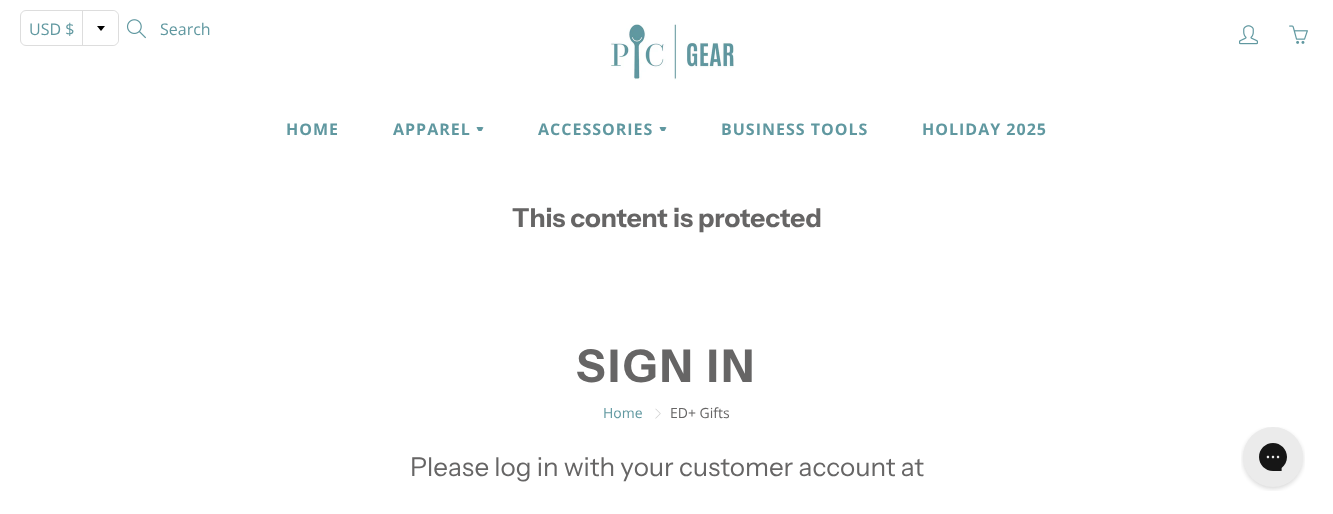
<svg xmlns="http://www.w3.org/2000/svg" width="1333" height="514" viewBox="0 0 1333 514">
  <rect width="100%" height="100%" fill="#ffffff"/>
  <rect x="20.5" y="10.5" width="98" height="35" rx="5.5" fill="none" stroke="#dddddd"/>
  <text x="29" y="35" font-family="Open Sans" font-size="16" fill="#6098a0">USD $</text>
  <path d="M82 11H112C115.5 11 118 13.5 118 17V39C118 42.5 115.5 45 112 45H82Z" fill="#ffffff"/>
  <rect x="82" y="11" width="1" height="34" fill="#dddddd"/>
  <path d="M97 26H105L101 31Z" fill="#000000"/>
  <image x="126" y="19" width="20" height="20" href="img1.png"/>
  <text x="160" y="35" font-family="Open Sans" font-size="16" fill="#6098a0">Search</text>
  <image x="610" y="24" width="124" height="56" href="img2.png"/>
  <image x="1239" y="25" width="19" height="20" href="img3.png"/>
  <image x="1289" y="25" width="19" height="19" href="img4.png"/>
  <text x="286" y="135" font-family="Open Sans" font-size="16" font-weight="bold" letter-spacing="1" fill="#6098a0">HOME</text>
  <text x="393" y="135" font-family="Open Sans" font-size="16" font-weight="bold" letter-spacing="1" fill="#6098a0">APPAREL</text>
  <path d="M477 127L476.5 127.5L478.5 131H481.5L483.5 127.5L482 127Z" fill="#6098a0"/>
  <text x="538" y="135" font-family="Open Sans" font-size="16" font-weight="bold" letter-spacing="1" fill="#6098a0">ACCESSORIES</text>
  <path d="M660 127L659.5 127.5L661.5 131H664.5L666.5 127.5L665 127Z" fill="#6098a0"/>
  <text x="721" y="135" font-family="Open Sans" font-size="16" font-weight="bold" letter-spacing="1" fill="#6098a0">BUSINESS TOOLS</text>
  <text x="922" y="135" font-family="Open Sans" font-size="16" font-weight="bold" letter-spacing="1" fill="#6098a0">HOLIDAY 2025</text>
  <text x="512" y="227" font-family="Instrument Sans" font-size="26" font-weight="bold" fill="#666565">This content is protected</text>
  <text x="576" y="382" font-family="Instrument Sans" font-size="45" font-weight="bold" letter-spacing="3" fill="#666565">SIGN IN</text>
  <text x="603" y="418" font-family="Open Sans" font-size="14" fill="#6098a0">Home</text>
  <image x="655" y="408" width="6" height="11" href="img5.png"/>
  <text x="670" y="418" font-family="Open Sans" font-size="14" fill="#666565">ED+ Gifts</text>
  <text x="410" y="476" font-family="Instrument Sans" font-size="26" fill="#666565">Please log in with your customer account at</text>
  <image x="1241" y="427" width="64" height="64" href="img6.png"/>
</svg>
